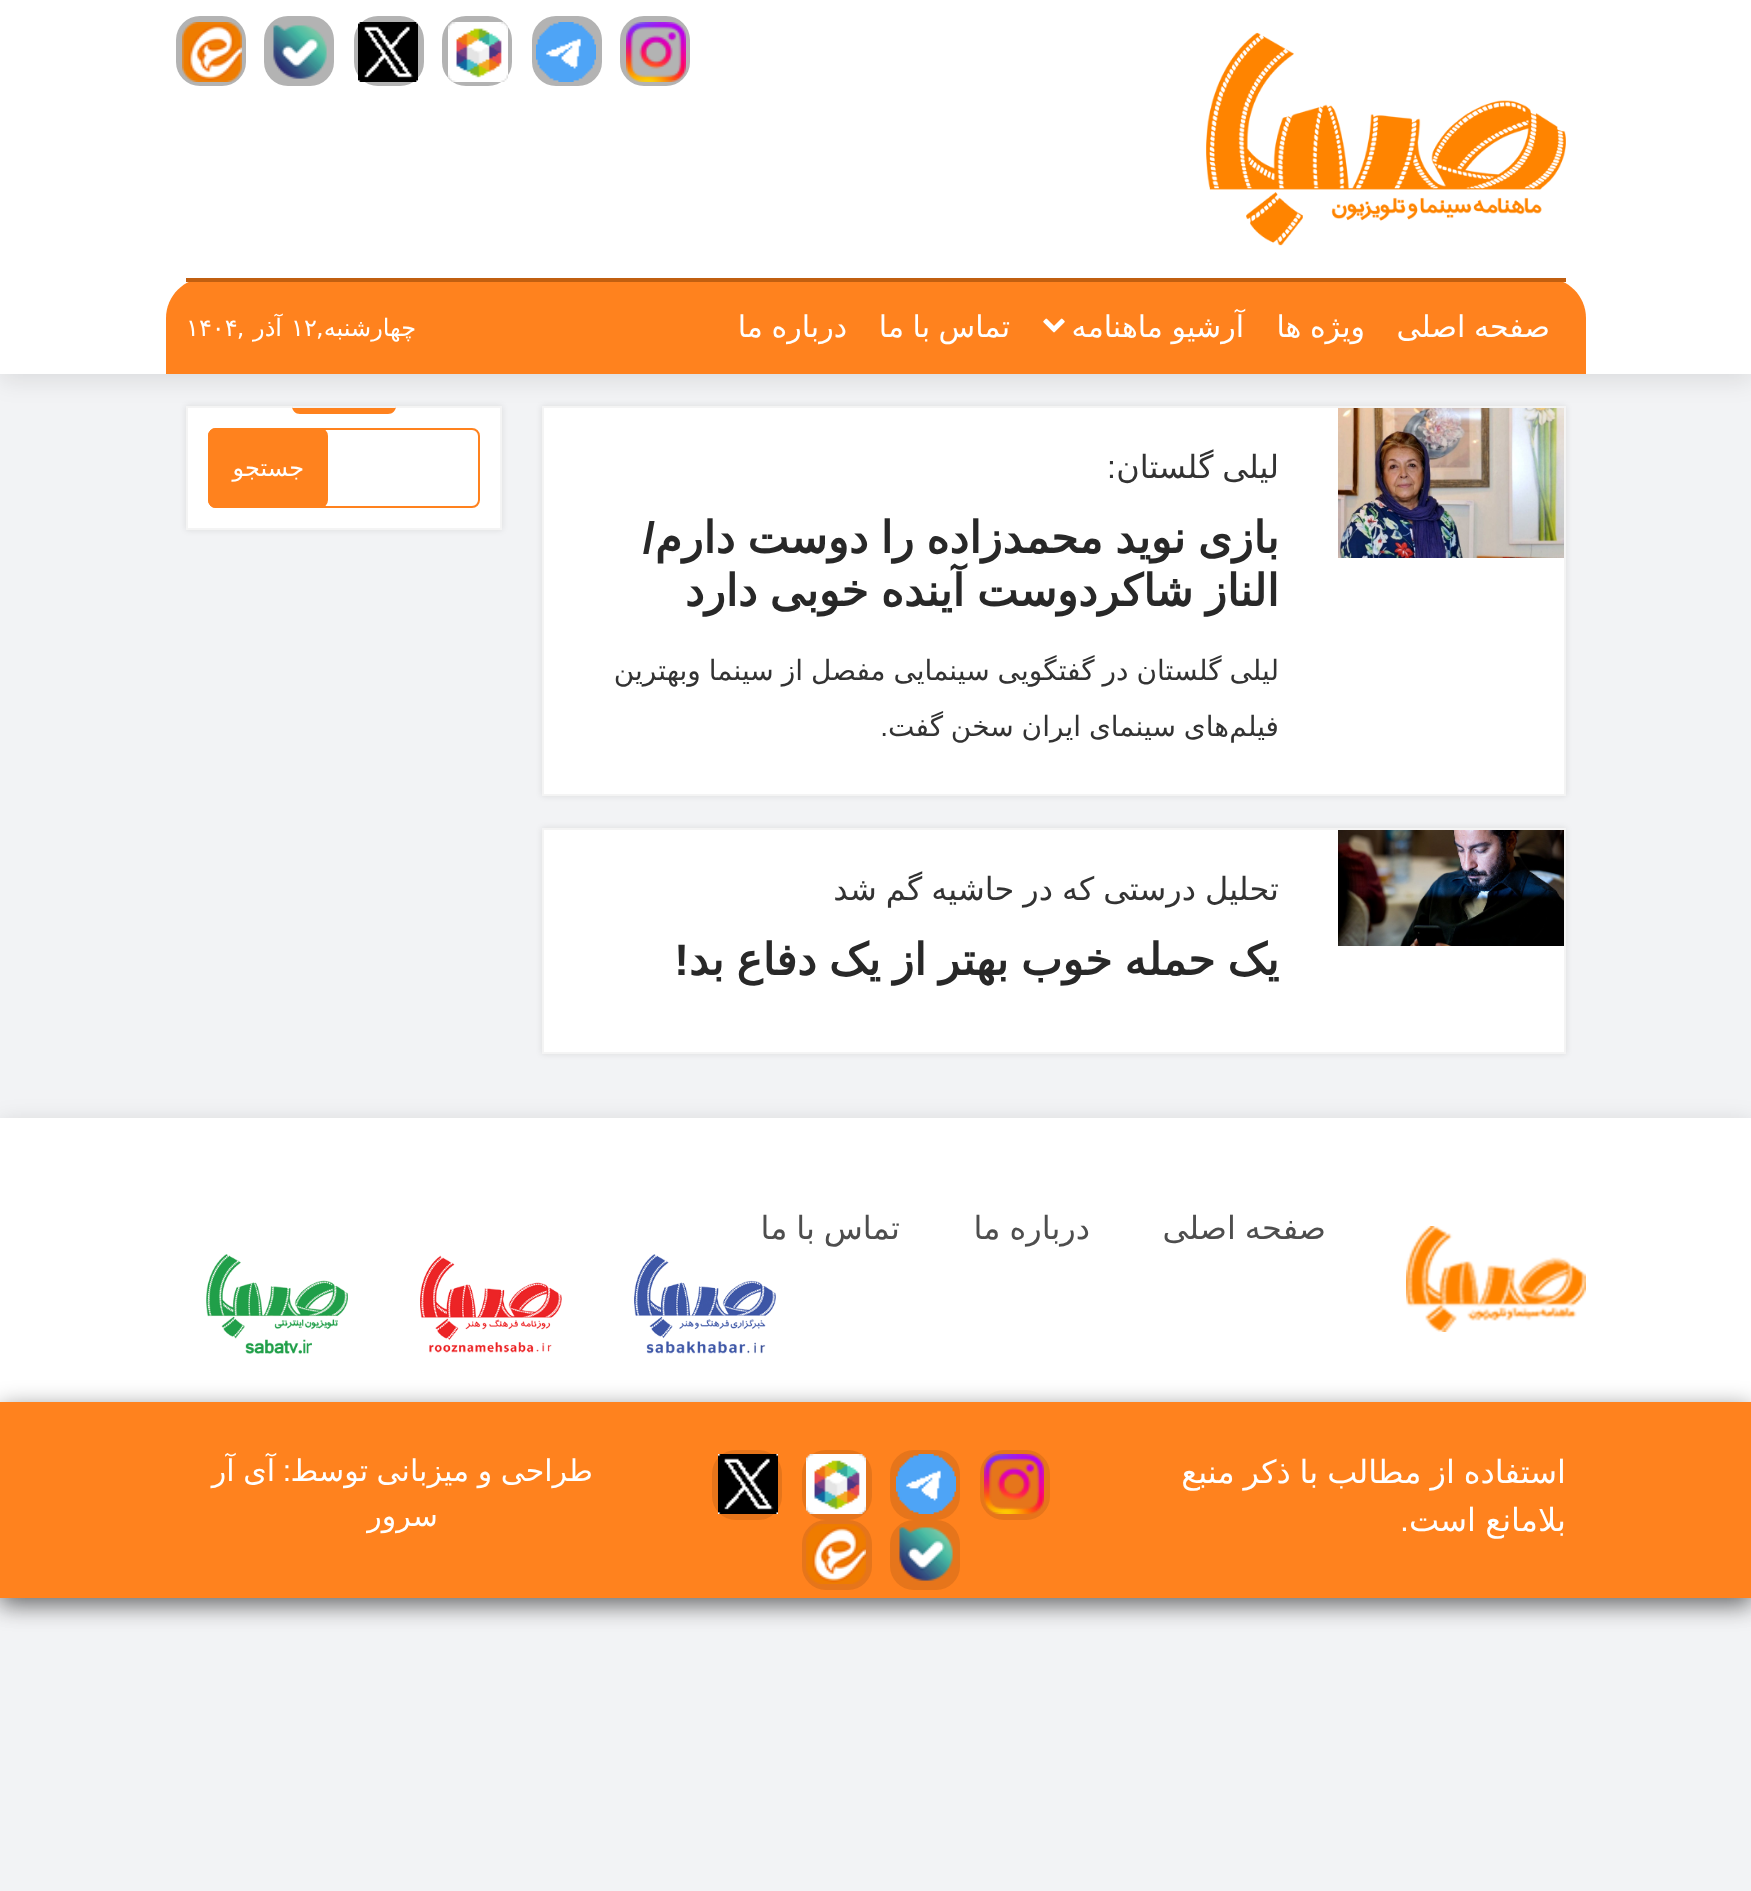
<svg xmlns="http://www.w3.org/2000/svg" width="1751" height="1891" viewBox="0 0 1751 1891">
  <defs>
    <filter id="blur1" x="-50%" y="-200%" width="200%" height="500%"><feGaussianBlur stdDeviation="12"/></filter>
    <filter id="blur2" x="-50%" y="-200%" width="200%" height="500%"><feGaussianBlur stdDeviation="3"/></filter>
  </defs>
  <rect width="100%" height="100%" fill="#f2f3f5"/>
  <rect x="0" y="6" width="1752" height="374" fill="#000000" fill-opacity="0.1" filter="url(#blur1)"/>
  <rect x="0" y="0" width="1751" height="374" fill="#ffffff"/>
  <image x="1206" y="32" width="360" height="214" href="img1.png"/>
  <rect x="620" y="16" width="70" height="70" rx="24" fill="#b3b3b3"/>
  <image x="626" y="22" width="60" height="60" href="img2.png"/>
  <rect x="532" y="16" width="70" height="70" rx="24" fill="#b3b3b3"/>
  <image x="536" y="22" width="60" height="60" href="img3.png"/>
  <rect x="442" y="16" width="70" height="70" rx="24" fill="#b3b3b3"/>
  <image x="448" y="22" width="60" height="60" href="img4.png"/>
  <rect x="354" y="16" width="70" height="70" rx="24" fill="#b3b3b3"/>
  <image x="358" y="22" width="60" height="60" href="img5.png"/>
  <rect x="264" y="16" width="70" height="70" rx="24" fill="#b3b3b3"/>
  <image x="273" y="25" width="54" height="54" href="img6.png"/>
  <rect x="176" y="16" width="70" height="70" rx="24" fill="#b3b3b3"/>
  <image x="182" y="22" width="60" height="60" href="img7.png"/>
  <path d="M206 278H1546C1568 278 1586 296 1586 318V374H166V318C166 296 184 278 206 278Z" fill="#ff821e"/>
  <rect x="186" y="278" width="1380" height="4" fill="#c15f10"/>
  <text x="1550" y="337" word-spacing="-1" font-family="DejaVu Sans" font-size="30" direction="rtl" fill="#ffffff">صفحه اصلی</text>
  <text x="1365" y="337" word-spacing="-1" font-family="DejaVu Sans" font-size="30" direction="rtl" fill="#ffffff">ویژه ها</text>
  <text x="1244" y="337" word-spacing="-1" font-family="DejaVu Sans" font-size="30" direction="rtl" fill="#ffffff">آرشیو ماهنامه</text>
  <image x="1043" y="318" width="22" height="15" href="img8.png"/>
  <text x="1010" y="337" word-spacing="-1" font-family="DejaVu Sans" font-size="30" direction="rtl" fill="#ffffff">تماس با ما</text>
  <text x="847" y="337" word-spacing="-1" font-family="DejaVu Sans" font-size="30" direction="rtl" fill="#ffffff">درباره ما</text>
  <text x="416" y="336" font-family="DejaVu Sans" font-size="24" direction="rtl" fill="#ffffff">چهارشنبه,</text>
  <text x="291" y="336" font-family="DejaVu Sans" font-size="24" fill="#ffffff">۱۲</text>
  <text x="282" y="336" word-spacing="1" font-family="DejaVu Sans" font-size="24" direction="rtl" fill="#ffffff">آذر ,</text>
  <text x="186" y="336" font-family="DejaVu Sans" font-size="24" fill="#ffffff">۱۴۰۴</text>
  <rect x="542" y="406" width="1024" height="390" fill="#000000" fill-opacity="0.1" filter="url(#blur2)"/>
  <rect x="543" y="407" width="1022" height="388" fill="#ffffff" stroke="#f4f4f4" stroke-width="2"/>
  <image x="1338" y="408" width="226" height="150" href="img9.png"/>
  <text x="1279" y="478" word-spacing="-1.25" font-family="DejaVu Sans" font-size="32" direction="rtl" fill="#333333">لیلی گلستان</text>
  <text x="1116" y="478" font-family="Liberation Sans" font-size="32" direction="rtl" fill="#333333">:</text>
  <text x="1279" y="553" word-spacing="-1.75" font-family="DejaVu Sans" font-size="44" font-weight="bold" direction="rtl" fill="#282828">بازی نوید محمدزاده را دوست دارم</text>
  <text x="655" y="553" font-family="Liberation Sans" font-size="44" font-weight="bold" direction="rtl" fill="#282828">/</text>
  <text x="1279" y="606" word-spacing="-1.75" font-family="DejaVu Sans" font-size="44" font-weight="bold" direction="rtl" fill="#282828">الناز شاکردوست آینده خوبی دارد</text>
  <text x="1279" y="680" word-spacing="-1" font-family="DejaVu Sans" font-size="28" direction="rtl" fill="#333333">لیلی گلستان در گفتگویی سینمایی مفصل از سینما وبهترین</text>
  <text x="1229" y="736" word-spacing="-1" font-family="DejaVu Sans" font-size="28" direction="rtl" fill="#333333">های سینمای ایران سخن گفت</text>
  <text x="1279" y="736" font-family="DejaVu Sans" font-size="28" direction="rtl" fill="#333333">فیلم</text>
  <text x="888" y="736" font-family="Liberation Sans" font-size="28" direction="rtl" fill="#333333">.</text>
  <rect x="542" y="828" width="1024" height="226" fill="#000000" fill-opacity="0.1" filter="url(#blur2)"/>
  <rect x="543" y="829" width="1022" height="224" fill="#ffffff" stroke="#f4f4f4" stroke-width="2"/>
  <image x="1338" y="830" width="226" height="116" href="img10.png"/>
  <text x="1279" y="900" word-spacing="-1.25" font-family="DejaVu Sans" font-size="32" direction="rtl" fill="#333333">تحلیل درستی که در حاشیه گم شد</text>
  <text x="1279" y="975" word-spacing="-1.75" font-family="DejaVu Sans" font-size="44" font-weight="bold" direction="rtl" fill="#282828">یک حمله خوب بهتر از یک دفاع بد</text>
  <text x="689" y="975" font-family="Liberation Sans" font-size="44" font-weight="bold" direction="rtl" fill="#282828">!</text>
  <rect x="186" y="406" width="316" height="124" fill="#000000" fill-opacity="0.1" filter="url(#blur2)"/>
  <rect x="187" y="407" width="314" height="122" fill="#ffffff" stroke="#f4f4f4" stroke-width="2"/>
  <path d="M292 408H396V406C396 410.5 392.5 414 388 414H300C295.5 414 292 410.5 292 406Z" fill="#ff821e"/>
  <rect x="209" y="429" width="270" height="78" rx="7" fill="none" stroke="#ff821e" stroke-width="2"/>
  <rect x="209" y="429" width="118" height="78" rx="7" fill="#ff821e" stroke="#ff821e" stroke-width="2"/>
  <text x="304" y="476" font-family="DejaVu Sans" font-size="24" direction="rtl" fill="#ffffff">جستجو</text>
  <rect x="0" y="1124" width="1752" height="480" fill="#000000" fill-opacity="0.16" filter="url(#blur1)"/>
  <rect x="0" y="1118" width="1751" height="284" fill="#ffffff"/>
  <image x="1406" y="1226" width="180" height="106" href="img11.png"/>
  <text x="1326" y="1239" word-spacing="-1.25" font-family="DejaVu Sans" font-size="32" direction="rtl" fill="#4e4e4e">صفحه اصلی</text>
  <text x="1090" y="1239" word-spacing="-1.25" font-family="DejaVu Sans" font-size="32" direction="rtl" fill="#4e4e4e">درباره ما</text>
  <text x="900" y="1239" word-spacing="-1.25" font-family="DejaVu Sans" font-size="32" direction="rtl" fill="#4e4e4e">تماس با ما</text>
  <image x="634" y="1254" width="142" height="100" href="img12.png"/>
  <image x="420" y="1255" width="142" height="98" href="img13.png"/>
  <image x="206" y="1254" width="142" height="100" href="img14.png"/>
  <rect x="0" y="1408" width="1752" height="196" fill="#000000" fill-opacity="0.5" filter="url(#blur1)"/>
  <rect x="0" y="1402" width="1751" height="196" fill="#ff821e"/>
  <text x="1566" y="1483" word-spacing="-1.25" font-family="DejaVu Sans" font-size="32" direction="rtl" fill="#ffffff">استفاده از مطالب با ذکر منبع</text>
  <text x="1566" y="1531" word-spacing="-1" font-family="DejaVu Sans" font-size="32" direction="rtl" fill="#ffffff">بلامانع است</text>
  <text x="1409" y="1531" font-family="Liberation Sans" font-size="32" direction="rtl" fill="#ffffff">.</text>
  <rect x="980" y="1450" width="70" height="70" rx="24" fill="#e6751b"/>
  <image x="984" y="1454" width="60" height="60" href="img15.png"/>
  <rect x="890" y="1450" width="70" height="70" rx="24" fill="#e6751b"/>
  <image x="896" y="1454" width="60" height="60" href="img16.png"/>
  <rect x="802" y="1450" width="70" height="70" rx="24" fill="#e6751b"/>
  <image x="806" y="1454" width="60" height="60" href="img17.png"/>
  <rect x="712" y="1450" width="70" height="70" rx="24" fill="#e6751b"/>
  <image x="718" y="1454" width="60" height="60" href="img18.png"/>
  <rect x="890" y="1520" width="70" height="70" rx="24" fill="#e6751b"/>
  <image x="899" y="1527" width="54" height="54" href="img19.png"/>
  <rect x="802" y="1520" width="70" height="70" rx="24" fill="#e6751b"/>
  <image x="806" y="1524" width="60" height="60" href="img20.png"/>
  <text x="593" y="1481" word-spacing="-1" font-family="DejaVu Sans" font-size="30" direction="rtl" fill="#ffffff">طراحی و میزبانی توسط</text>
  <text x="291" y="1481" font-family="Liberation Sans" font-size="30" direction="rtl" fill="#ffffff">:</text>
  <text x="275" y="1481" word-spacing="-1" font-family="DejaVu Sans" font-size="30" direction="rtl" fill="#ffffff">آی آر</text>
  <text x="438" y="1526" font-family="DejaVu Sans" font-size="30" direction="rtl" fill="#ffffff">سرور</text>
</svg>
